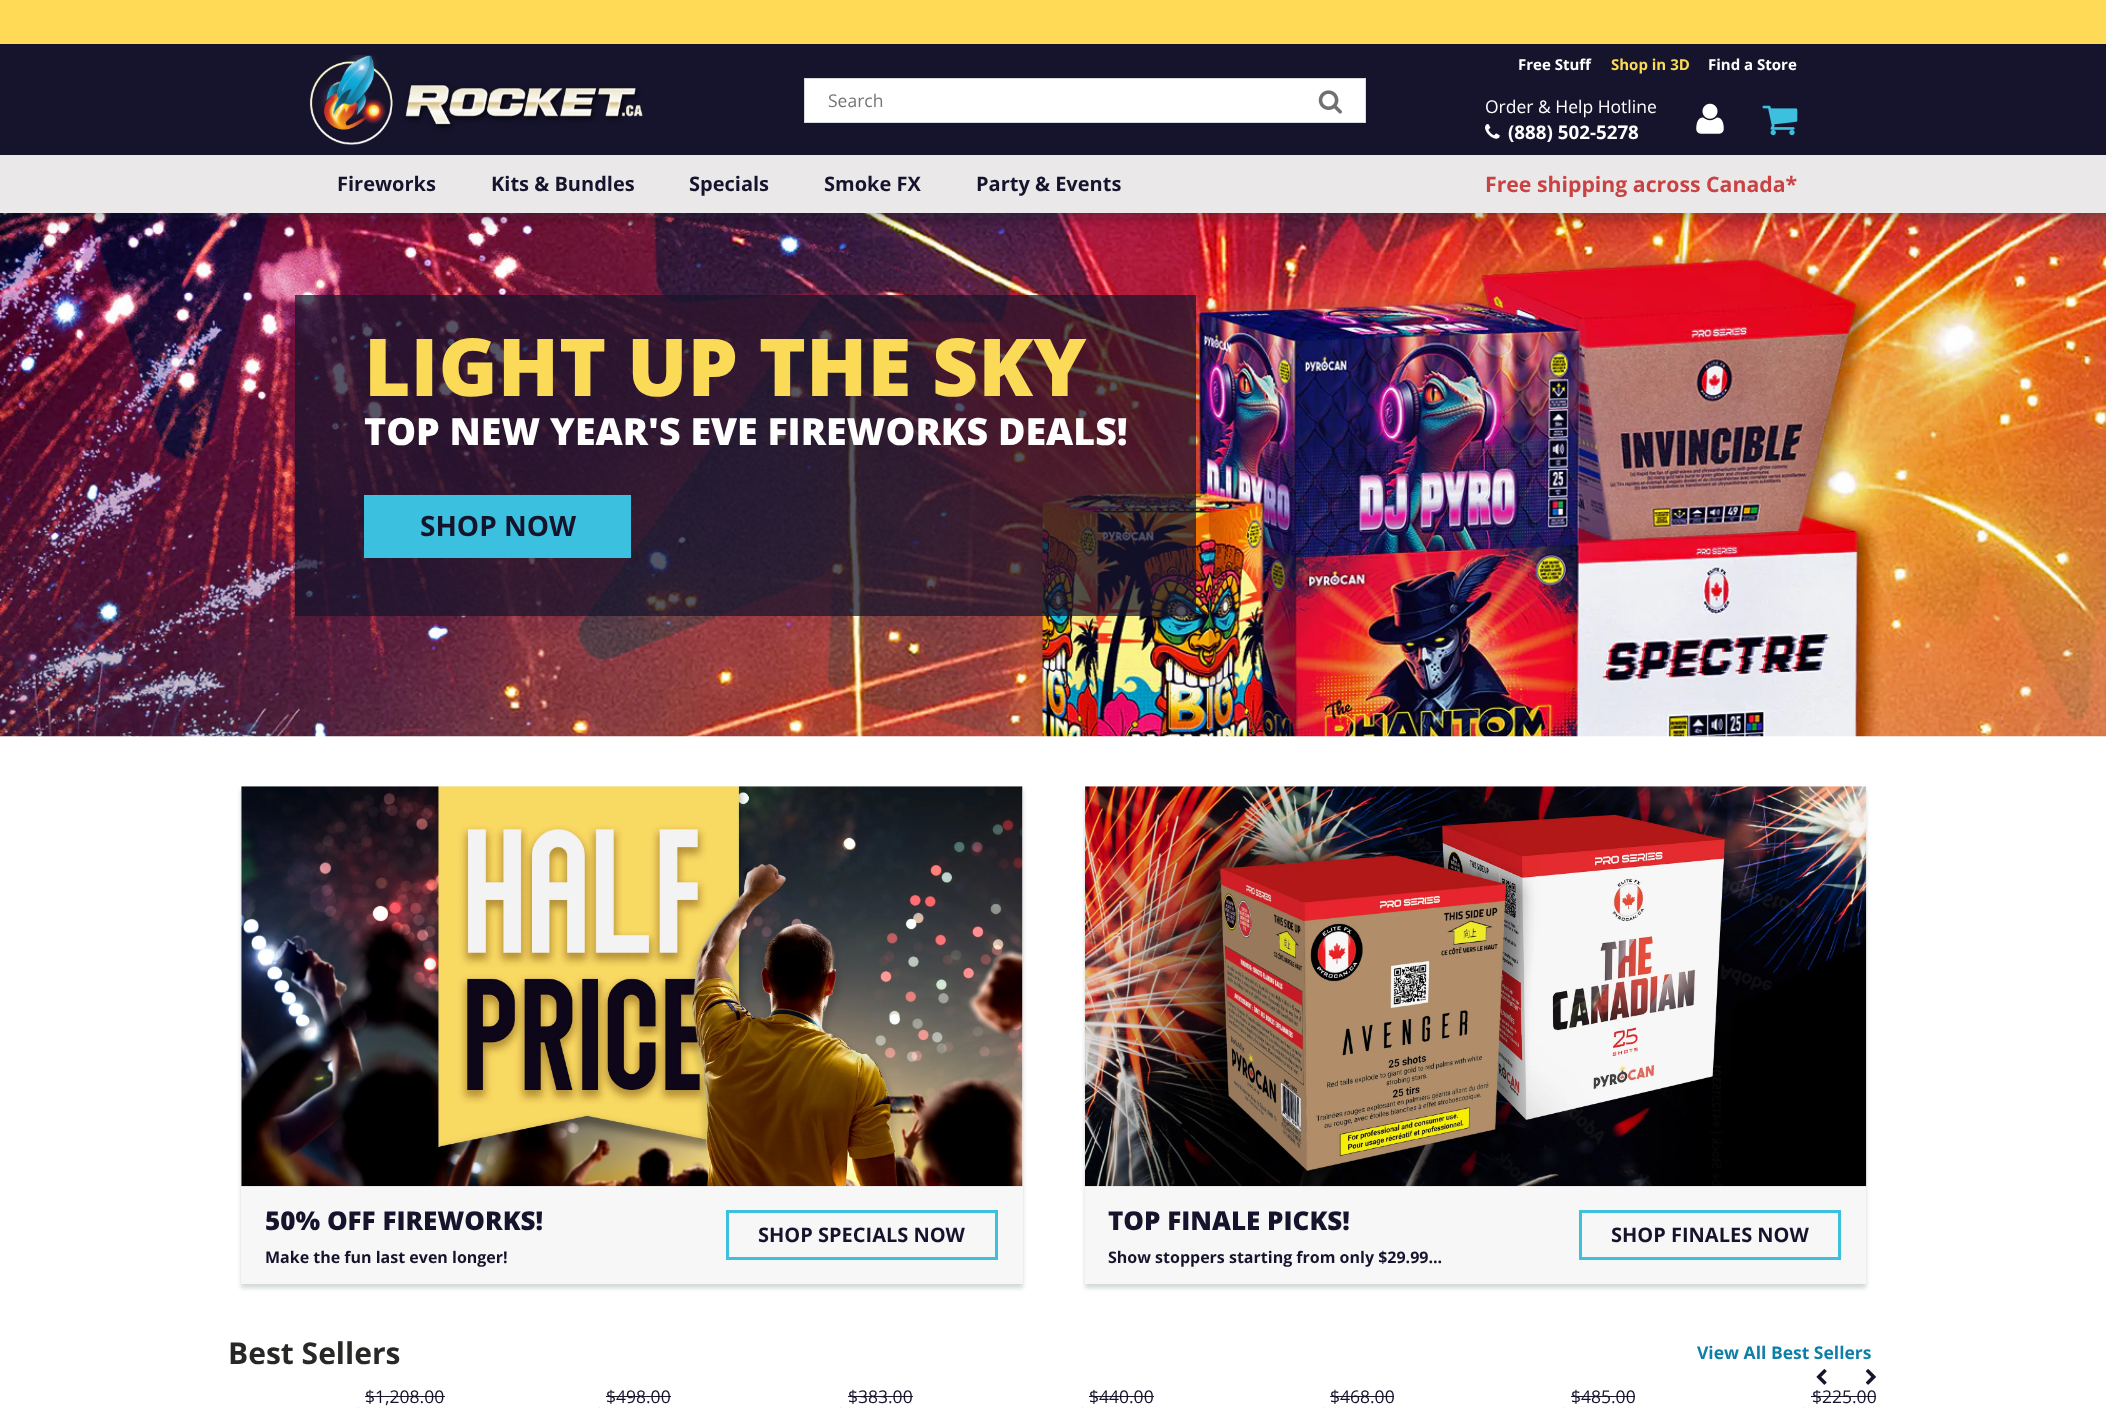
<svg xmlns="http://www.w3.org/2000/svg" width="2106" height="1408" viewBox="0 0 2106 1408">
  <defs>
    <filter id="blur1" x="-50%" y="-200%" width="200%" height="500%"><feGaussianBlur stdDeviation="6"/></filter>
    <filter id="blur2" x="-50%" y="-200%" width="200%" height="500%"><feGaussianBlur stdDeviation="2"/></filter>
  </defs>
  <rect width="100%" height="100%" fill="#ffffff"/>
  <rect x="0" y="0" width="2106" height="44" fill="#ffda57"/>
  <rect x="0" y="44" width="2106" height="111" fill="#16142c"/>
  <image x="309" y="55" width="334" height="90" href="img1.png"/>
  <rect x="804.5" y="78.5" width="561" height="44" fill="#ffffff" stroke="#d7dbdb"/>
  <text x="828" y="107" font-family="Open Sans" font-size="17.5" fill="#757575">Search</text>
  <image x="1318" y="90" width="24" height="24" href="img2.png"/>
  <text x="1518" y="70" font-family="Open Sans" font-size="15" font-weight="bold" fill="#ffffff">Free Stuff</text>
  <text x="1611" y="70" font-family="Open Sans" font-size="15" font-weight="bold" fill="#fbda57">Shop in 3D</text>
  <text x="1708" y="70" font-family="Open Sans" font-size="15" font-weight="bold" fill="#ffffff">Find a Store</text>
  <text x="1485" y="113" font-family="Open Sans" font-size="17.5" fill="#ffffff">Order &amp; Help Hotline</text>
  <image x="1485" y="124" width="15" height="15" href="img3.png"/>
  <text x="1508" y="139" font-family="Open Sans" font-size="18.75" font-weight="bold" fill="#ffffff">(888) 502-5278</text>
  <image x="1696" y="103" width="28" height="31" href="img4.png"/>
  <image x="1762" y="105" width="36" height="31" href="img5.png"/>
  <image x="0" y="213" width="2106" height="524" href="img6.png"/>
  <rect x="0" y="160" width="2106" height="58" fill="#0b191c" fill-opacity="0.3" filter="url(#blur1)"/>
  <rect x="0" y="155" width="2106" height="58" fill="#eae8e8"/>
  <text x="337" y="191" font-family="Open Sans" font-size="20" font-weight="bold" fill="#16142c">Fireworks</text>
  <text x="491" y="191" font-family="Open Sans" font-size="20" font-weight="bold" fill="#16142c">Kits &amp; Bundles</text>
  <text x="689" y="191" font-family="Open Sans" font-size="20" font-weight="bold" fill="#16142c">Specials</text>
  <text x="824" y="191" font-family="Open Sans" font-size="20" font-weight="bold" fill="#16142c">Smoke FX</text>
  <text x="976" y="191" font-family="Open Sans" font-size="20" font-weight="bold" fill="#16142c">Party &amp; Events</text>
  <text x="1485" y="192" font-family="Open Sans" font-size="21.25" font-weight="bold" fill="#c94344">Free shipping across Canada*</text>
  <rect x="295" y="295" width="901" height="321" fill="#16142c" fill-opacity="0.73"/>
  <text x="364" y="396" font-family="Open Sans" font-size="80" font-weight="800" fill="#fbda57">LIGHT UP THE SKY</text>
  <text x="364" y="445" font-family="Open Sans" font-size="37.5" font-weight="800" fill="#ffffff">TOP NEW YEAR'S EVE FIREWORKS DEALS!</text>
  <rect x="364" y="495" width="267" height="63" fill="#3cc0df"/>
  <text x="420" y="536" font-family="Open Sans" font-size="28" font-weight="bold" fill="#16142c">SHOP NOW</text>
  <rect x="241" y="790" width="782" height="498" fill="#d1d7d7" filter="url(#blur2)"/>
  <rect x="241" y="786" width="782" height="498" fill="#f7f7f7"/>
  <image x="241" y="786" width="782" height="401" href="img7.png"/>
  <text x="265" y="1230" font-family="Open Sans" font-size="26" font-weight="800" fill="#16142c">50% OFF FIREWORKS!</text>
  <text x="265" y="1263" font-family="Open Sans" font-size="16" font-weight="bold" fill="#16142c">Make the fun last even longer!</text>
  <rect x="727.5" y="1211.5" width="269" height="47" fill="none" stroke="#3dbfde" stroke-width="3"/>
  <text x="758" y="1242" font-family="Open Sans" font-size="20" font-weight="bold" fill="#16142c">SHOP SPECIALS NOW</text>
  <rect x="1085" y="790" width="781" height="498" fill="#d1d7d7" filter="url(#blur2)"/>
  <rect x="1085" y="786" width="781" height="498" fill="#f7f7f7"/>
  <image x="1085" y="786" width="782" height="401" href="img8.png"/>
  <text x="1108" y="1230" font-family="Open Sans" font-size="26" font-weight="800" fill="#16142c">TOP FINALE PICKS!</text>
  <text x="1108" y="1263" font-family="Open Sans" font-size="16" font-weight="bold" fill="#16142c">Show stoppers starting from only $29.99...</text>
  <rect x="1580.5" y="1211.5" width="259" height="47" fill="none" stroke="#3dbfde" stroke-width="3"/>
  <text x="1611" y="1242" font-family="Open Sans" font-size="20" font-weight="bold" fill="#16142c">SHOP FINALES NOW</text>
  <text x="228" y="1364" font-family="Open Sans" font-size="30" font-weight="bold" fill="#282827">Best Sellers</text>
  <text x="1697" y="1359" font-family="Open Sans" font-size="17.5" font-weight="bold" fill="#107fa8">View All Best Sellers</text>
  <text x="1812" y="1403" font-family="Open Sans" font-size="17.5" fill="#16142c">$225.00</text>
  <rect x="1816" y="1389" width="2" height="1" fill="#ffffff"/>
  <image x="1816" y="1369" width="11" height="16" href="img9.png"/>
  <image x="1865" y="1369" width="11" height="16" href="img10.png"/>
  <text x="365" y="1403" font-family="Open Sans" font-size="17.5" fill="#16142c">$1,208.00</text>
  <rect x="365" y="1396" width="80" height="1" fill="#16142c"/>
  <path d="M359 1407.5V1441L340 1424Z" fill="#c94344"/>
  <text x="606" y="1403" font-family="Open Sans" font-size="17.5" fill="#16142c">$498.00</text>
  <rect x="606" y="1396" width="65" height="1" fill="#16142c"/>
  <path d="M600 1407.5V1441L581 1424Z" fill="#c94344"/>
  <text x="848" y="1403" font-family="Open Sans" font-size="17.5" fill="#16142c">$383.00</text>
  <rect x="848" y="1396" width="65" height="1" fill="#16142c"/>
  <path d="M841 1407.5V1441L822.5 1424Z" fill="#c94344"/>
  <text x="1089" y="1403" font-family="Open Sans" font-size="17.5" fill="#16142c">$440.00</text>
  <rect x="1089" y="1396" width="65" height="1" fill="#16142c"/>
  <path d="M1082.5 1407.5V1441L1064 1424Z" fill="#c94344"/>
  <text x="1330" y="1403" font-family="Open Sans" font-size="17.5" fill="#16142c">$468.00</text>
  <rect x="1330" y="1396" width="64" height="1" fill="#16142c"/>
  <path d="M1324 1407.5V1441L1305 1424Z" fill="#c94344"/>
  <text x="1571" y="1403" font-family="Open Sans" font-size="17.5" fill="#16142c">$485.00</text>
  <rect x="1571" y="1396" width="64" height="1" fill="#16142c"/>
  <path d="M1565 1407.5V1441L1546 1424Z" fill="#c94344"/>
  <rect x="1811" y="1396" width="65" height="1" fill="#16142c"/>
  <path d="M1805 1407.5V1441L1786 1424Z" fill="#c94344"/>
</svg>
